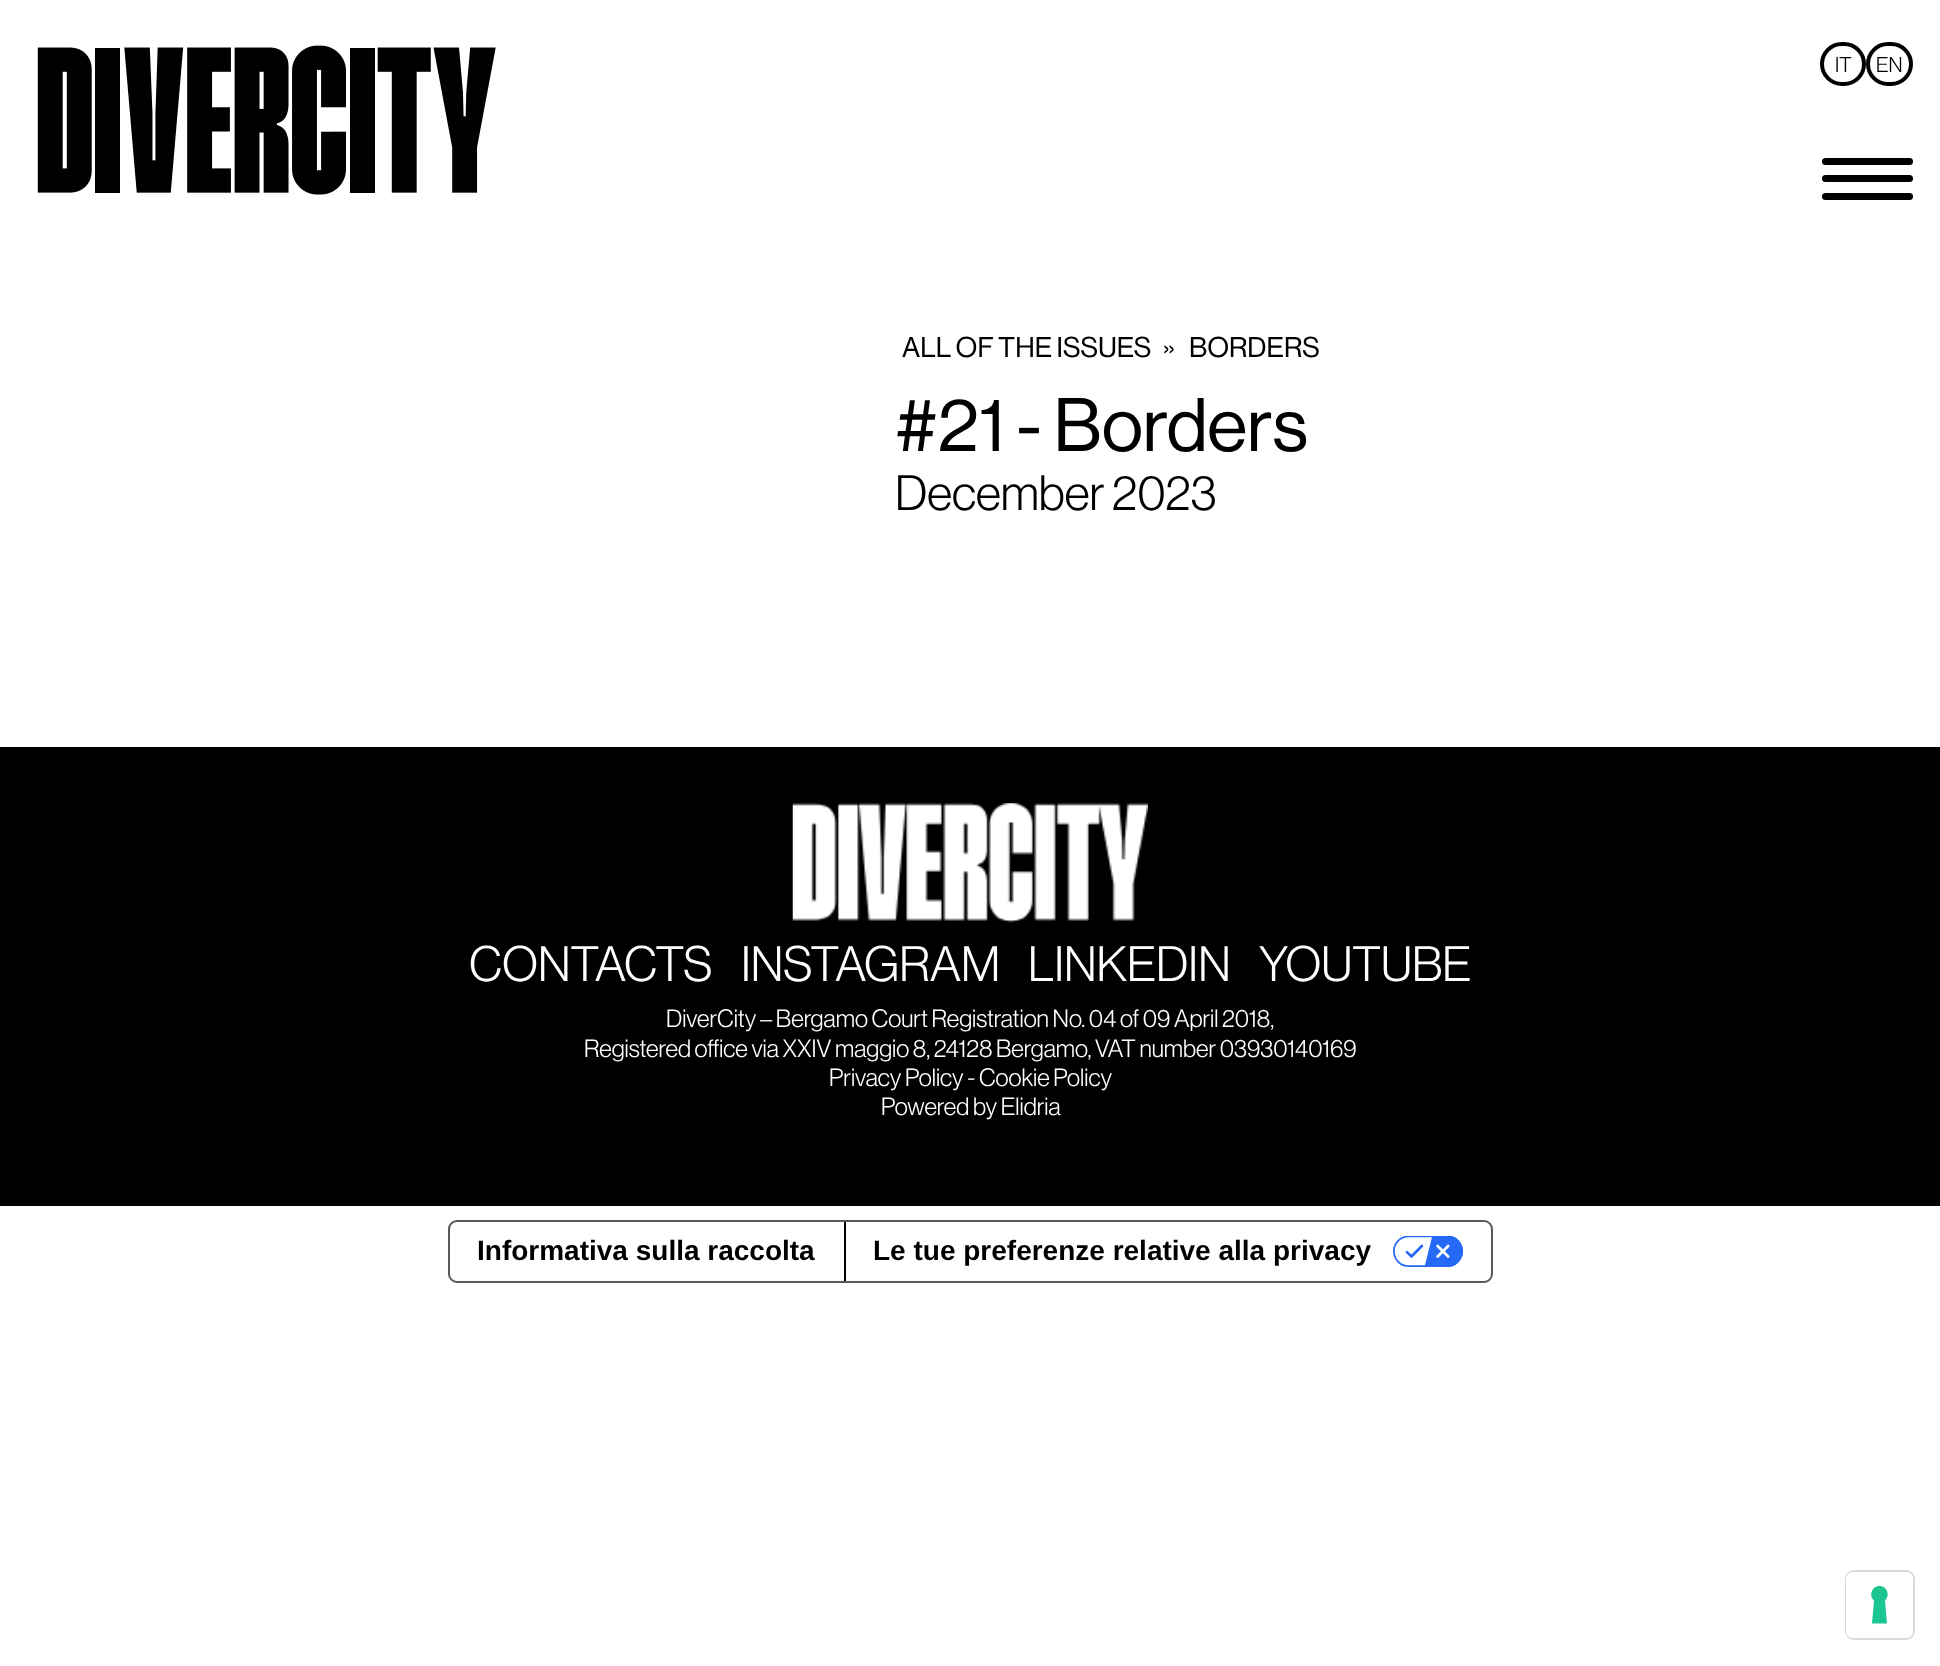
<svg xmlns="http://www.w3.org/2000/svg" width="1940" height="1666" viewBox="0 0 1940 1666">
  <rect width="100%" height="100%" fill="#ffffff"/>
  <image x="37" y="45" width="459" height="150" href="img1.png"/>
  <rect x="1822" y="44" width="42" height="40" rx="20" fill="none" stroke="#000000" stroke-width="4"/>
  <text x="1835" y="72" font-family="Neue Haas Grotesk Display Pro" font-size="21" fill="#000000">IT</text>
  <rect x="1868" y="44" width="43" height="40" rx="20" fill="none" stroke="#000000" stroke-width="4"/>
  <text x="1876" y="72" font-family="Neue Haas Grotesk Display Pro" font-size="21" fill="#000000">EN</text>
  <rect x="1822" y="158" width="91" height="7" rx="3.5" fill="#000000"/>
  <rect x="1822" y="175" width="91" height="7" rx="3.5" fill="#000000"/>
  <rect x="1822" y="193" width="91" height="7" rx="3.5" fill="#000000"/>
  <text x="902" y="357" font-family="Neue Haas Grotesk Display Pro" font-size="28" font-weight="500" fill="#000000">ALL OF THE ISSUES</text>
  <text x="1163" y="357" font-family="Neue Haas Grotesk Display Pro" font-size="28" font-weight="500" fill="#000000">»</text>
  <text x="1189" y="357" font-family="Neue Haas Grotesk Display Pro" font-size="28" font-weight="500" fill="#000000">BORDERS</text>
  <text x="895" y="451" font-family="Neue Haas Grotesk Display Pro" font-size="74" font-weight="500" fill="#000000">#21 - Borders</text>
  <text x="895" y="510" font-family="Neue Haas Grotesk Display Pro" font-size="48.75" fill="#000000">December 2023</text>
  <rect x="0" y="747" width="1940" height="459" fill="#000000"/>
  <image x="792" y="803" width="356" height="120" href="img2.png"/>
  <text x="469" y="981" font-family="Neue Haas Grotesk Display Pro" font-size="48.75" fill="#ffffff">CONTACTS</text>
  <text x="741" y="981" font-family="Neue Haas Grotesk Display Pro" font-size="48.75" fill="#ffffff">INSTAGRAM</text>
  <text x="1028" y="981" font-family="Neue Haas Grotesk Display Pro" font-size="48.75" fill="#ffffff">LINKEDIN</text>
  <text x="1259" y="981" font-family="Neue Haas Grotesk Display Pro" font-size="48.75" fill="#ffffff">YOUTUBE</text>
  <text x="666" y="1027" font-family="Neue Haas Grotesk Display Pro" font-size="24.5" fill="#ffffff">DiverCity – Bergamo Court Registration No. 04 of 09 April 2018,</text>
  <text x="584" y="1057" font-family="Neue Haas Grotesk Display Pro" font-size="24.5" fill="#ffffff">Registered office via XXIV maggio 8, 24128 Bergamo, VAT number 03930140169</text>
  <text x="829" y="1086" font-family="Neue Haas Grotesk Display Pro" font-size="24.5" fill="#ffffff">Privacy Policy - Cookie Policy</text>
  <text x="881" y="1115" font-family="Neue Haas Grotesk Display Pro" font-size="24.5" fill="#ffffff">Powered by Elidria</text>
  <rect x="449" y="1221" width="1043" height="61" rx="8" fill="none" stroke="#595959" stroke-width="2"/>
  <text x="477" y="1260" font-family="Liberation Sans" font-size="28" font-weight="bold" fill="#000000">Informativa sulla raccolta</text>
  <rect x="844" y="1222" width="2" height="59" fill="#000000"/>
  <text x="873" y="1260" font-family="Liberation Sans" font-size="28" font-weight="bold" fill="#000000">Le tue preferenze relative alla privacy</text>
  <image x="1393" y="1236" width="70" height="31" href="img3.png"/>
  <rect x="1846" y="1571" width="68" height="68" rx="8" fill="none" stroke="#d9d9d9" stroke-width="2"/>
  <rect x="1846" y="1572" width="67" height="66" rx="7" fill="#ffffff"/>
  <path d="M1879.5 1586C1887 1586 1890.5 1595.5 1885 1600.5L1887 1623.5H1872L1874 1600.5C1868.5 1595.5 1872 1586 1879.5 1586Z" fill="#1cc691" fill-rule="evenodd"/>
</svg>
